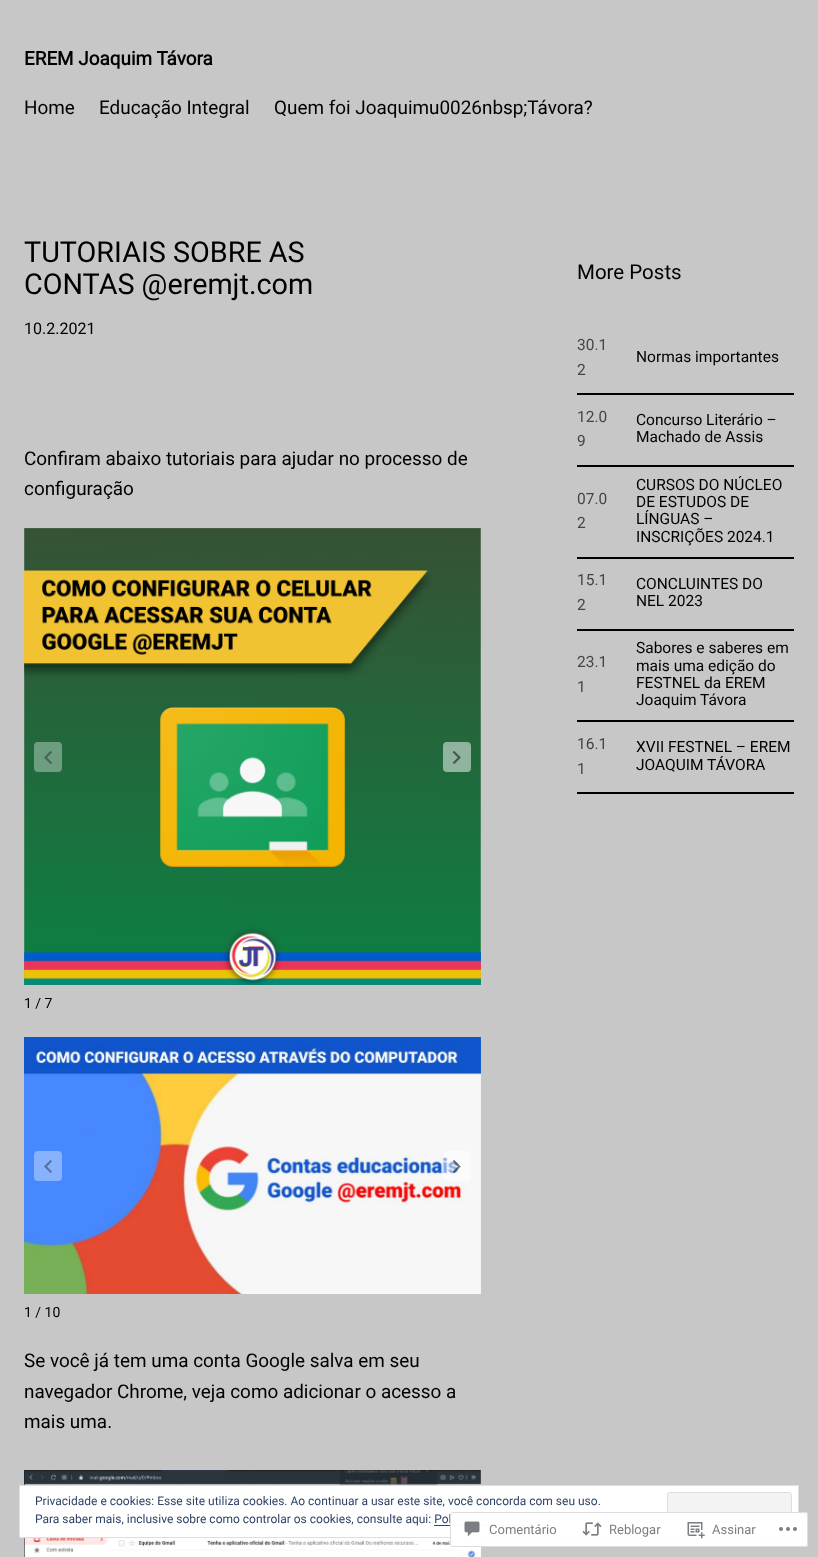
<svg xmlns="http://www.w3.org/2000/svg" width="818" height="1557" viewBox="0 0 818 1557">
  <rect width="100%" height="100%" fill="#c7c7c7"/>
  <text x="24" y="65" font-family="Roboto" font-size="18.9" font-weight="bold" fill="#000000">EREM Joaquim Távora</text>
  <text x="24" y="114" font-family="Roboto" font-size="18.9" fill="#000000">Home</text>
  <text x="99" y="114" font-family="Roboto" font-size="18.9" fill="#000000">Educação Integral</text>
  <text x="274" y="114" font-family="Roboto" font-size="18.9" fill="#000000">Quem foi Joaquimu0026nbsp;Távora?</text>
  <text x="24" y="262" font-family="Roboto" font-size="28.75" fill="#000000">TUTORIAIS SOBRE AS</text>
  <text x="24" y="294" font-family="Roboto" font-size="28.75" fill="#000000">CONTAS @eremjt.com</text>
  <text x="24" y="334" font-family="Roboto" font-size="16" fill="#000000">10.2.2021</text>
  <text x="24" y="465" font-family="Roboto" font-size="18.9" fill="#000000">Confiram abaixo tutoriais para ajudar no processo de</text>
  <text x="24" y="495" font-family="Roboto" font-size="18.9" fill="#000000">configuração</text>
  <image x="24" y="528" width="457" height="457" href="img1.png"/>
  <rect x="34" y="742" width="28" height="30" rx="4" fill="#ffffff" fill-opacity="0.35"/>
  <image x="44" y="751" width="8" height="13" href="img2.png"/>
  <rect x="443" y="742" width="28" height="30" rx="4" fill="#ffffff" fill-opacity="0.5"/>
  <image x="452" y="751" width="9" height="13" href="img3.png"/>
  <text x="24" y="1008" font-family="Roboto" font-size="14" fill="#000000">1 / 7</text>
  <image x="24" y="1037" width="457" height="257" href="img4.png"/>
  <rect x="34" y="1151" width="28" height="30" rx="4" fill="#87b2fe"/>
  <image x="44" y="1160" width="8" height="13" href="img5.png"/>
  <rect x="443" y="1151" width="28" height="30" rx="4" fill="#ffffff" fill-opacity="0.5"/>
  <image x="452" y="1160" width="9" height="13" href="img6.png"/>
  <text x="24" y="1317" font-family="Roboto" font-size="14" fill="#000000">1 / 10</text>
  <text x="24" y="1367" font-family="Roboto" font-size="18.9" fill="#000000">Se você já tem uma conta Google salva em seu</text>
  <text x="24" y="1398" font-family="Roboto" font-size="18.9" fill="#000000">navegador Chrome, veja como adicionar o acesso a</text>
  <text x="24" y="1428" font-family="Roboto" font-size="18.9" fill="#000000">mais uma.</text>
  <image x="24" y="1470" width="457" height="87" href="img7.png"/>
  <text x="577" y="279" font-family="Roboto" font-size="20.5" fill="#000000">More Posts</text>
  <rect x="577" y="393" width="217" height="2" fill="#000000"/>
  <text x="577" y="350" font-family="Roboto" font-size="15.5" fill="#454545">30.1</text>
  <text x="577" y="375" font-family="Roboto" font-size="15.5" fill="#454545">2</text>
  <text x="636" y="362" font-family="Roboto" font-size="15.5" fill="#000000">Normas importantes</text>
  <rect x="577" y="465" width="217" height="2" fill="#000000"/>
  <text x="577" y="422" font-family="Roboto" font-size="15.5" fill="#454545">12.0</text>
  <text x="577" y="446" font-family="Roboto" font-size="15.5" fill="#454545">9</text>
  <text x="636" y="425" font-family="Roboto" font-size="15.5" fill="#000000">Concurso Literário –</text>
  <text x="636" y="442" font-family="Roboto" font-size="15.5" fill="#000000">Machado de Assis</text>
  <rect x="577" y="557" width="217" height="2" fill="#000000"/>
  <text x="577" y="504" font-family="Roboto" font-size="15.5" fill="#454545">07.0</text>
  <text x="577" y="528" font-family="Roboto" font-size="15.5" fill="#454545">2</text>
  <text x="636" y="490" font-family="Roboto" font-size="15.5" fill="#000000">CURSOS DO NÚCLEO</text>
  <text x="636" y="507" font-family="Roboto" font-size="15.5" fill="#000000">DE ESTUDOS DE</text>
  <text x="636" y="524" font-family="Roboto" font-size="15.5" fill="#000000">LÍNGUAS –</text>
  <text x="636" y="542" font-family="Roboto" font-size="15.5" fill="#000000">INSCRIÇÕES 2024.1</text>
  <rect x="577" y="629" width="217" height="2" fill="#000000"/>
  <text x="577" y="585" font-family="Roboto" font-size="15.5" fill="#454545">15.1</text>
  <text x="577" y="610" font-family="Roboto" font-size="15.5" fill="#454545">2</text>
  <text x="636" y="589" font-family="Roboto" font-size="15.5" fill="#000000">CONCLUINTES DO</text>
  <text x="636" y="606" font-family="Roboto" font-size="15.5" fill="#000000">NEL 2023</text>
  <rect x="577" y="720" width="217" height="2" fill="#000000"/>
  <text x="577" y="667" font-family="Roboto" font-size="15.5" fill="#454545">23.1</text>
  <text x="577" y="692" font-family="Roboto" font-size="15.5" fill="#454545">1</text>
  <text x="636" y="653" font-family="Roboto" font-size="15.5" fill="#000000">Sabores e saberes em</text>
  <text x="636" y="671" font-family="Roboto" font-size="15.5" fill="#000000">mais uma edição do</text>
  <text x="636" y="688" font-family="Roboto" font-size="15.5" fill="#000000">FESTNEL da EREM</text>
  <text x="636" y="705" font-family="Roboto" font-size="15.5" fill="#000000">Joaquim Távora</text>
  <rect x="577" y="792" width="217" height="2" fill="#000000"/>
  <text x="577" y="749" font-family="Roboto" font-size="15.5" fill="#454545">16.1</text>
  <text x="577" y="774" font-family="Roboto" font-size="15.5" fill="#454545">1</text>
  <text x="636" y="752" font-family="Roboto" font-size="15.5" fill="#000000">XVII FESTNEL – EREM</text>
  <text x="636" y="770" font-family="Roboto" font-size="15.5" fill="#000000">JOAQUIM TÁVORA</text>
  <rect x="19.5" y="1485.5" width="779" height="52" fill="#ffffff" stroke="#dedede"/>
  <text x="35" y="1505" font-family="Roboto" font-size="12" fill="#2e4467">Privacidade e cookies: Esse site utiliza cookies. Ao continuar a usar este site, você concorda com seu uso.</text>
  <rect x="667.5" y="1492.5" width="124" height="38" rx="2.5" fill="#f3f3f3" stroke="#dedede"/>
  <text x="35" y="1523" font-family="Roboto" font-size="12" fill="#2e4467">Para saber mais, inclusive sobre como controlar os cookies, consulte aqui: Pol</text>
  <rect x="434" y="1525" width="101" height="1" fill="#2e4467"/>
  <rect x="450" y="1512" width="358" height="35" rx="3" fill="#ffffff" fill-opacity="0.98"/>
  <rect x="450.5" y="1512.5" width="357" height="34" rx="2.5" fill="none" stroke="#dcdcde" stroke-opacity="0.98"/>
  <image x="464" y="1521" width="16" height="16" href="img8.png"/>
  <text x="489" y="1534" font-family="Roboto" font-size="13" fill="#7b7f84">Comentário</text>
  <image x="582" y="1522" width="20" height="14" href="img9.png"/>
  <text x="609" y="1534" font-family="Roboto" font-size="13" fill="#7b7f84">Reblogar</text>
  <image x="687" y="1522" width="18" height="17" href="img10.png"/>
  <text x="712" y="1534" font-family="Roboto" font-size="13" fill="#7b7f84">Assinar</text>
  <image x="779" y="1527" width="18" height="4" href="img11.png"/>
</svg>
